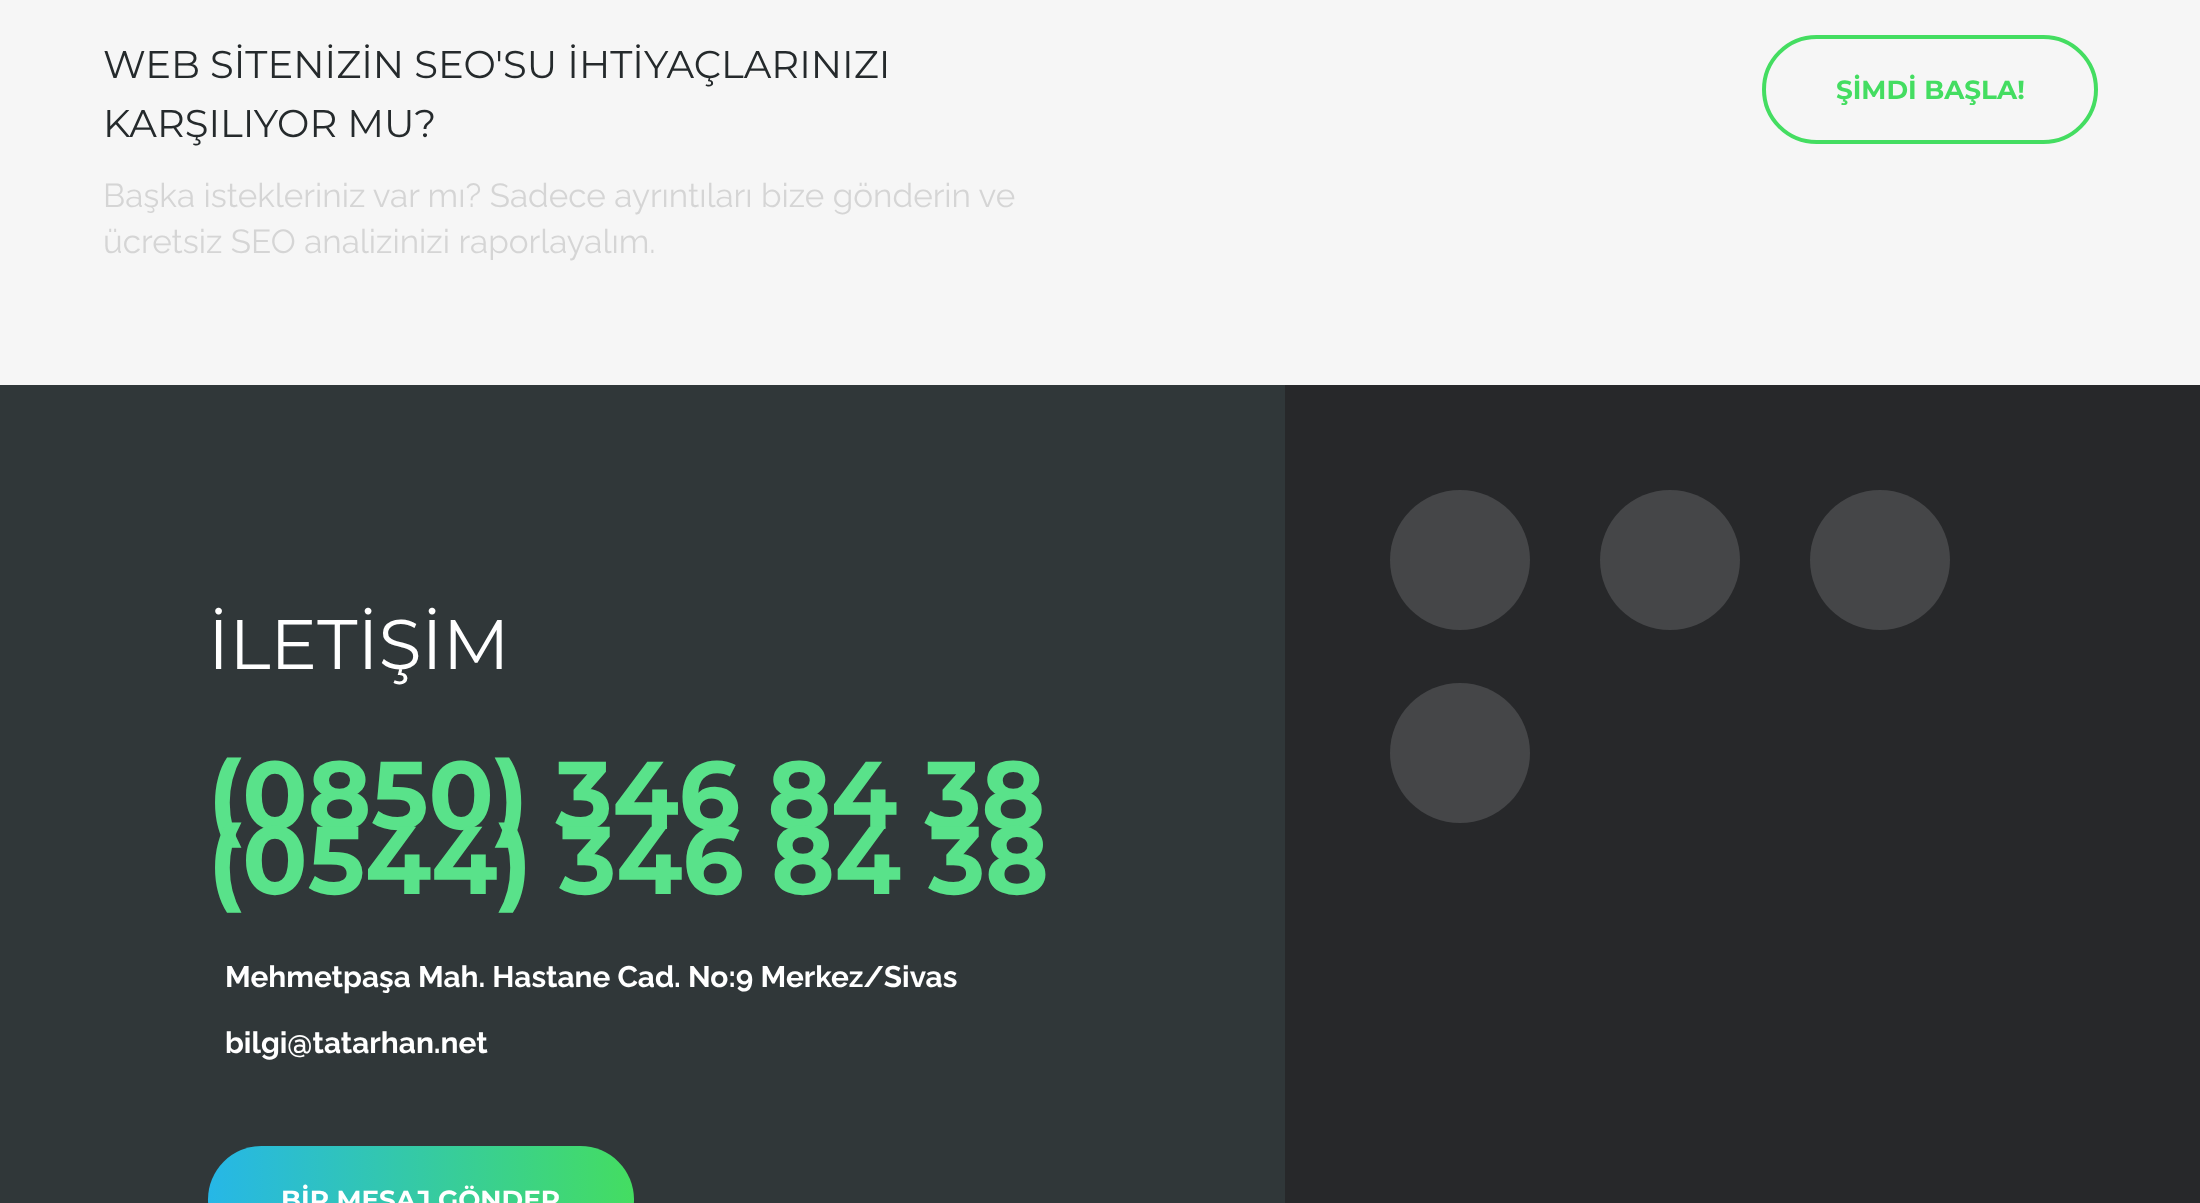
<svg xmlns="http://www.w3.org/2000/svg" width="2200" height="1203" viewBox="0 0 2200 1203">
  <defs>
    <linearGradient id="g1" gradientUnits="userSpaceOnUse" x1="208" y1="1200" x2="634" y2="1200"><stop offset="0" stop-color="#26b7e7"/><stop offset="1" stop-color="#44dd61"/></linearGradient>
  </defs>
  <rect width="100%" height="100%" fill="#f6f6f6"/>
  <text x="103" y="78" font-family="Montserrat" font-size="38.5" fill="#252a2c">WEB SİTENİZİN SEO'SU İHTİYAÇLARINIZI</text>
  <text x="103" y="137" font-family="Montserrat" font-size="38.5" fill="#252a2c">KARŞILIYOR MU?</text>
  <text x="103" y="207" font-family="Raleway" font-size="33.25" font-weight="100" fill="#d5d5d5">Başka istekleriniz var mı? Sadece ayrıntıları bize gönderin ve</text>
  <text x="103" y="253" font-family="Raleway" font-size="33.25" font-weight="100" fill="#d5d5d5">ücretsiz SEO analizinizi raporlayalım.</text>
  <rect x="1764" y="37" width="332" height="105" rx="52.5" fill="none" stroke="#44dd61" stroke-width="4"/>
  <text x="1836" y="99" font-family="Montserrat" font-size="26.25" font-weight="bold" fill="#44dd61">ŞİMDİ BAŞLA!</text>
  <rect x="0" y="385" width="1285" height="818" fill="#303739"/>
  <text x="208" y="669" font-family="Montserrat" font-size="70" fill="#ffffff">İLETİŞİM</text>
  <text x="208" y="829" font-family="Montserrat" font-size="96.25" font-weight="bold" fill="#59e28a">(0850) 346 84 38</text>
  <text x="208" y="894" font-family="Montserrat" font-size="96.25" font-weight="bold" fill="#59e28a">(0544) 346 84 38</text>
  <text x="225" y="987" font-family="Raleway" font-size="29.75" font-weight="bold" fill="#ffffff">Mehmetpaşa Mah. Hastane Cad. No:9 Merkez/Sivas</text>
  <text x="225" y="1053" font-family="Raleway" font-size="29.75" font-weight="bold" fill="#ffffff">bilgi@tatarhan.net</text>
  <rect x="208" y="1146" width="426" height="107" rx="53.5" fill="url(#g1)"/>
  <text x="281" y="1209" font-family="Montserrat" font-size="26.25" font-weight="bold" fill="#ffffff">BİR MESAJ GÖNDER</text>
  <rect x="1285" y="385" width="915" height="818" fill="#27282a"/>
  <circle cx="1460" cy="560" r="70" fill="#454648"/>
  <circle cx="1670" cy="560" r="70" fill="#454648"/>
  <circle cx="1880" cy="560" r="70" fill="#454648"/>
  <circle cx="1460" cy="753" r="70" fill="#454648"/>
</svg>
